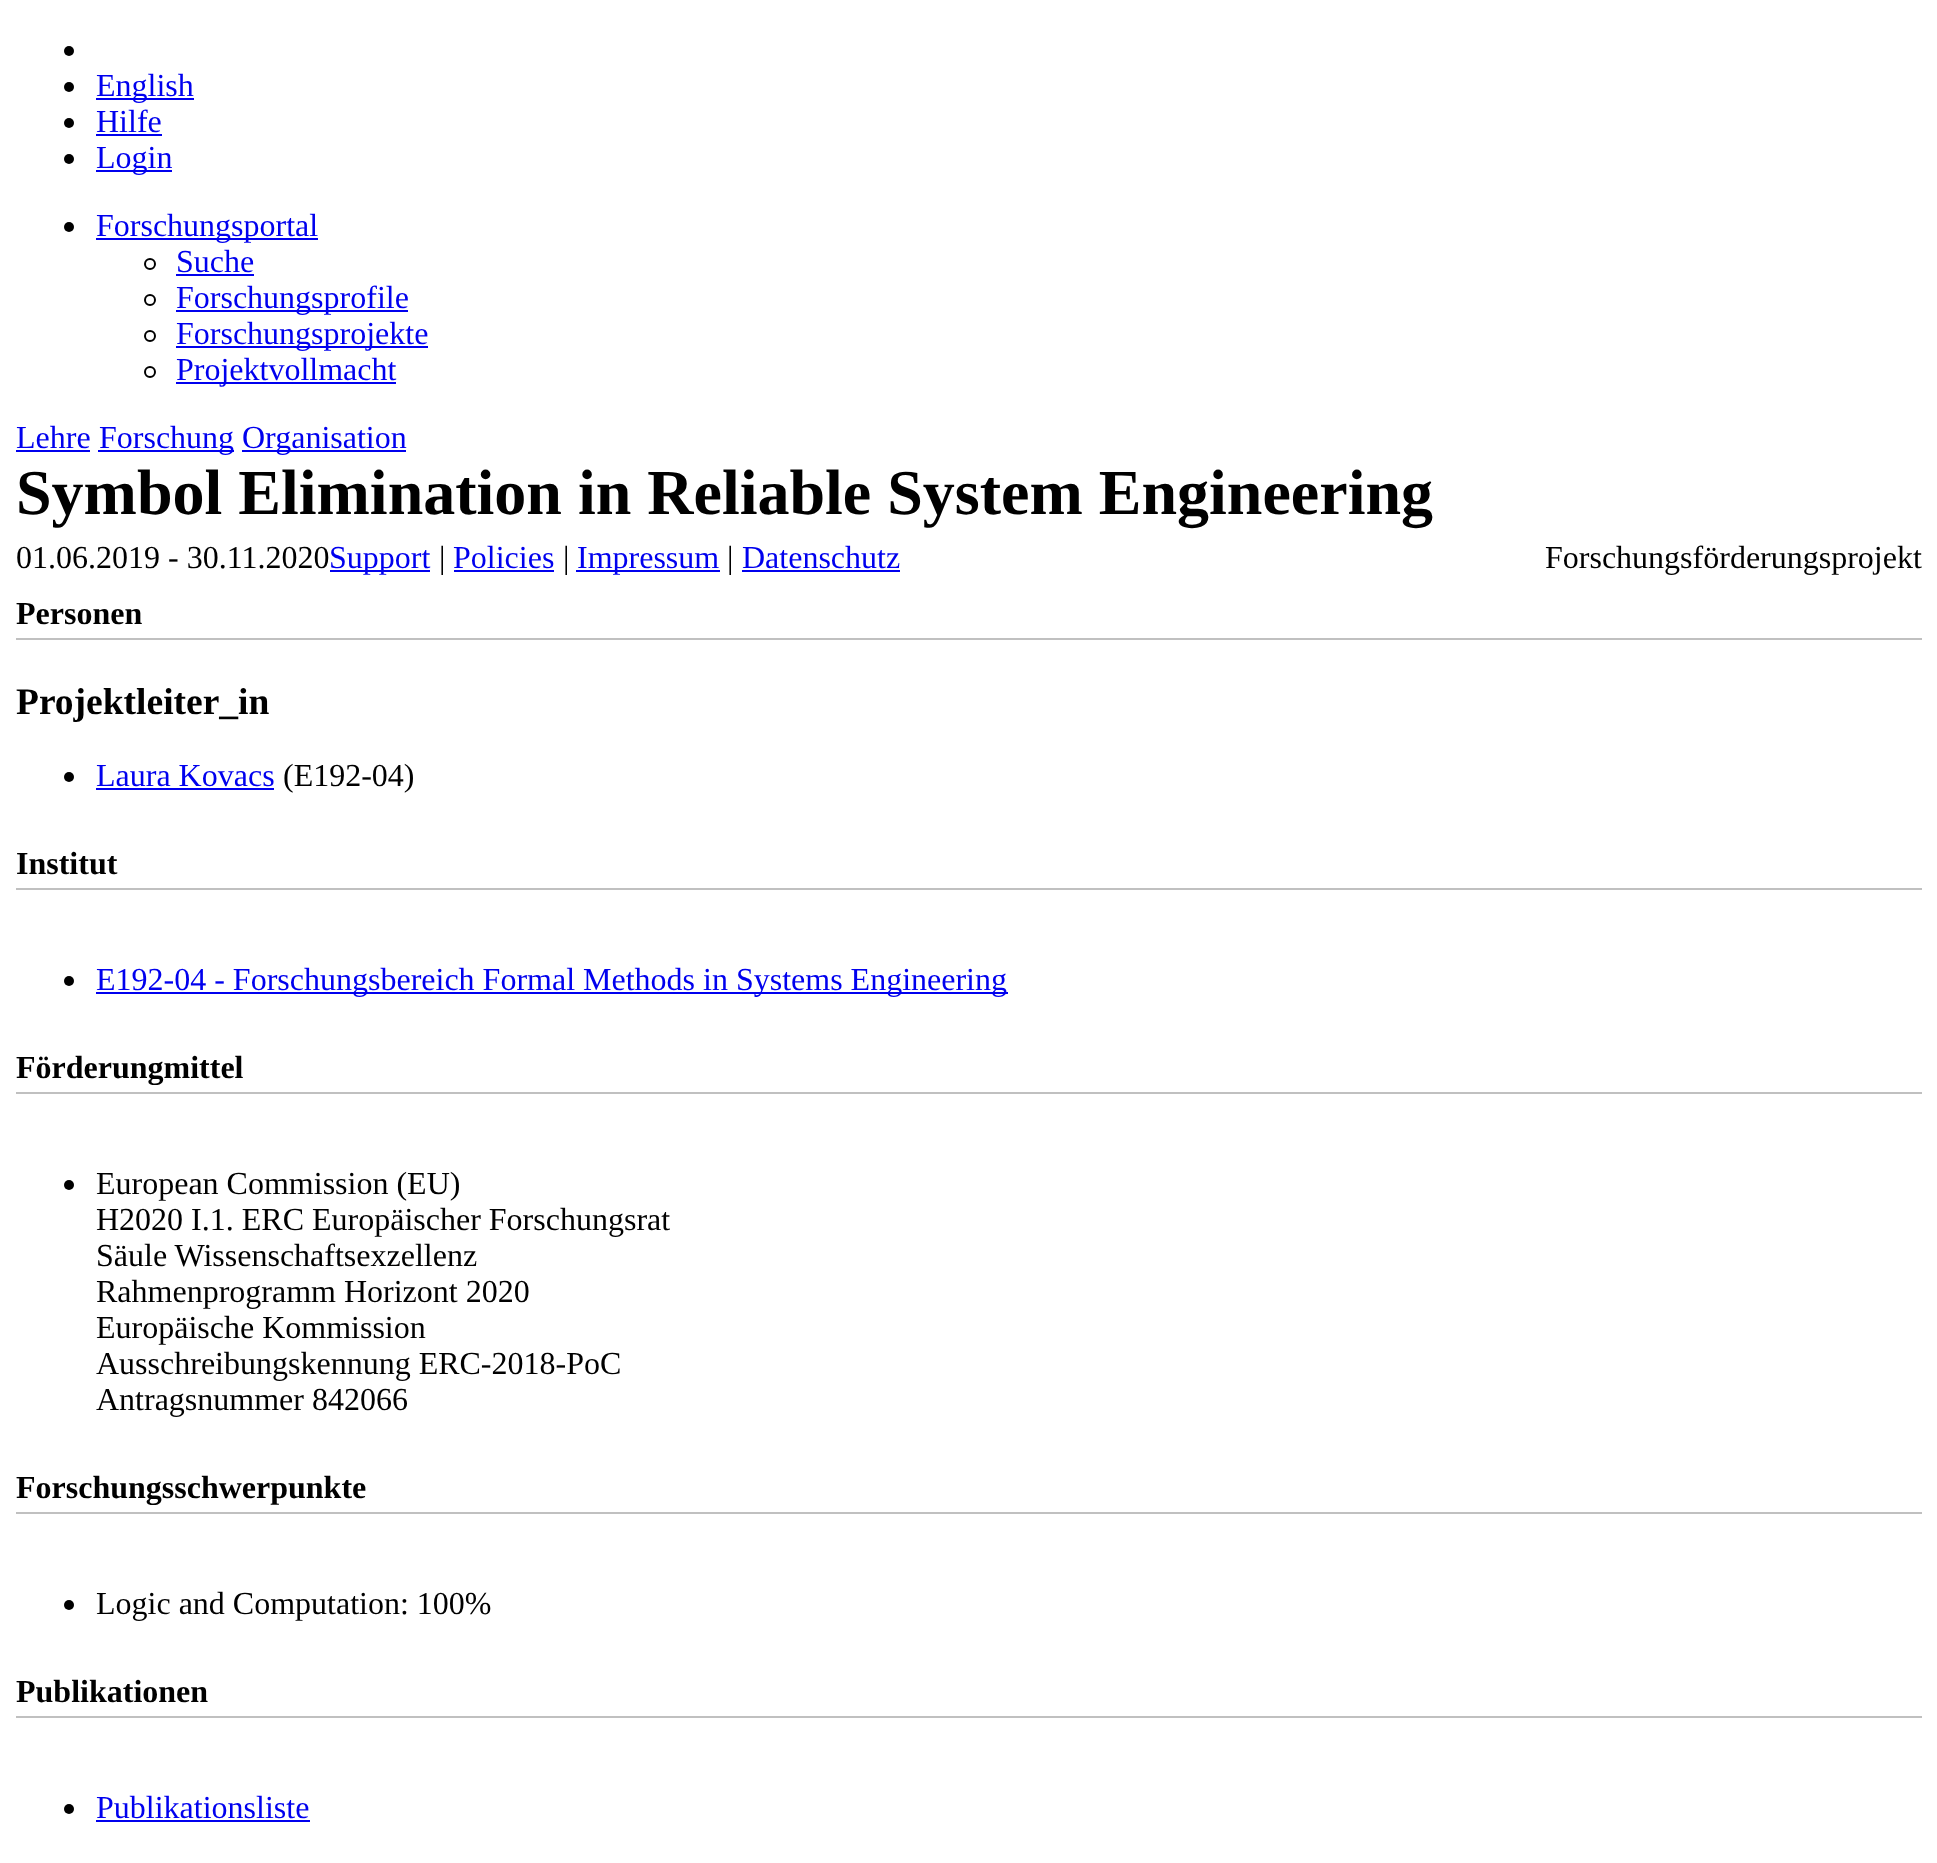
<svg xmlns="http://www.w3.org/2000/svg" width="1937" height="1863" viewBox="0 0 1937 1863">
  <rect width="100%" height="100%" fill="#ffffff"/>
  <circle cx="69" cy="51" r="5" fill="#000000"/>
  <circle cx="69" cy="87" r="5" fill="#000000"/>
  <rect x="96" y="98" width="98" height="2" fill="#0000ee"/>
  <text x="96" y="96" font-family="Liberation Serif" font-size="32" fill="#0000ee">English</text>
  <circle cx="69" cy="123" r="5" fill="#000000"/>
  <text x="96" y="132" font-family="Liberation Serif" font-size="32" fill="#0000ee">Hilfe</text>
  <rect x="96" y="134" width="66" height="2" fill="#0000ee"/>
  <circle cx="69" cy="159" r="5" fill="#000000"/>
  <rect x="96" y="170" width="76" height="2" fill="#0000ee"/>
  <text x="96" y="168" font-family="Liberation Serif" font-size="32" fill="#0000ee">Login</text>
  <circle cx="69" cy="227" r="5" fill="#000000"/>
  <rect x="96" y="238" width="222" height="2" fill="#0000ee"/>
  <text x="96" y="236" font-family="Liberation Serif" font-size="32" fill="#0000ee">Forschungsportal</text>
  <circle cx="150" cy="264" r="5" fill="none" stroke="#000000" stroke-width="2"/>
  <text x="176" y="272" font-family="Liberation Serif" font-size="32" fill="#0000ee">Suche</text>
  <rect x="176" y="274" width="78" height="2" fill="#0000ee"/>
  <circle cx="150" cy="300" r="5" fill="none" stroke="#000000" stroke-width="2"/>
  <rect x="176" y="310" width="232" height="2" fill="#0000ee"/>
  <text x="176" y="308" font-family="Liberation Serif" font-size="32" fill="#0000ee">Forschungsprofile</text>
  <circle cx="150" cy="336" r="5" fill="none" stroke="#000000" stroke-width="2"/>
  <rect x="176" y="346" width="252" height="2" fill="#0000ee"/>
  <text x="176" y="344" font-family="Liberation Serif" font-size="32" fill="#0000ee">Forschungsprojekte</text>
  <circle cx="150" cy="372" r="5" fill="none" stroke="#000000" stroke-width="2"/>
  <rect x="176" y="382" width="220" height="2" fill="#0000ee"/>
  <text x="176" y="380" font-family="Liberation Serif" font-size="32" fill="#0000ee">Projektvollmacht</text>
  <text x="16" y="448" font-family="Liberation Serif" font-size="32" fill="#0000ee">Lehre</text>
  <rect x="16" y="450" width="74" height="2" fill="#0000ee"/>
  <rect x="98" y="450" width="136" height="2" fill="#0000ee"/>
  <text x="99" y="448" font-family="Liberation Serif" font-size="32" fill="#0000ee">Forschung</text>
  <rect x="242" y="450" width="164" height="2" fill="#0000ee"/>
  <text x="242" y="448" font-family="Liberation Serif" font-size="32" fill="#0000ee">Organisation</text>
  <text x="16" y="514" font-family="Liberation Serif" font-size="64" font-weight="bold" fill="#000000">Symbol Elimination in Reliable System Engineering</text>
  <text x="16" y="568" font-family="Liberation Serif" font-size="32" fill="#000000">01.06.2019 - 30.11.2020</text>
  <text x="1545" y="568" font-family="Liberation Serif" font-size="32" fill="#000000">Forschungsförderungsprojekt</text>
  <rect x="16" y="638" width="1906" height="2" fill="#c0c0c0"/>
  <text x="16" y="624" font-family="Liberation Serif" font-size="32" font-weight="bold" fill="#000000">Personen</text>
  <text x="16" y="714" font-family="Liberation Serif" font-size="37.5" font-weight="bold" fill="#000000">Projektleiter_in</text>
  <circle cx="69" cy="777" r="5" fill="#000000"/>
  <text x="96" y="786" font-family="Liberation Serif" font-size="32" fill="#0000ee">Laura Kovacs</text>
  <rect x="96" y="788" width="178" height="2" fill="#0000ee"/>
  <text x="283" y="786" font-family="Liberation Serif" font-size="32" fill="#000000">(E192-04)</text>
  <rect x="16" y="888" width="1906" height="2" fill="#c0c0c0"/>
  <text x="16" y="874" font-family="Liberation Serif" font-size="32" font-weight="bold" fill="#000000">Institut</text>
  <circle cx="69" cy="981" r="5" fill="#000000"/>
  <rect x="96" y="992" width="912" height="2" fill="#0000ee"/>
  <text x="96" y="990" font-family="Liberation Serif" font-size="32" fill="#0000ee">E192-04 - Forschungsbereich Formal Methods in Systems Engineering</text>
  <rect x="16" y="1092" width="1906" height="2" fill="#c0c0c0"/>
  <text x="16" y="1078" font-family="Liberation Serif" font-size="32" font-weight="bold" fill="#000000">Förderungmittel</text>
  <circle cx="69" cy="1185" r="5" fill="#000000"/>
  <text x="96" y="1194" font-family="Liberation Serif" font-size="32" fill="#000000">European Commission (EU)</text>
  <text x="96" y="1230" font-family="Liberation Serif" font-size="32" fill="#000000">H2020 I.1. ERC Europäischer Forschungsrat</text>
  <text x="96" y="1266" font-family="Liberation Serif" font-size="32" fill="#000000">Säule Wissenschaftsexzellenz</text>
  <text x="96" y="1302" font-family="Liberation Serif" font-size="32" fill="#000000">Rahmenprogramm Horizont 2020</text>
  <text x="96" y="1338" font-family="Liberation Serif" font-size="32" fill="#000000">Europäische Kommission</text>
  <text x="96" y="1374" font-family="Liberation Serif" font-size="32" fill="#000000">Ausschreibungskennung ERC-2018-PoC</text>
  <text x="96" y="1410" font-family="Liberation Serif" font-size="32" fill="#000000">Antragsnummer 842066</text>
  <rect x="16" y="1512" width="1906" height="2" fill="#c0c0c0"/>
  <text x="16" y="1498" font-family="Liberation Serif" font-size="32" font-weight="bold" fill="#000000">Forschungsschwerpunkte</text>
  <circle cx="69" cy="1605" r="5" fill="#000000"/>
  <text x="96" y="1614" font-family="Liberation Serif" font-size="32" fill="#000000">Logic and Computation: 100%</text>
  <rect x="16" y="1716" width="1906" height="2" fill="#c0c0c0"/>
  <text x="16" y="1702" font-family="Liberation Serif" font-size="32" font-weight="bold" fill="#000000">Publikationen</text>
  <circle cx="69" cy="1809" r="5" fill="#000000"/>
  <text x="96" y="1818" font-family="Liberation Serif" font-size="32" fill="#0000ee">Publikationsliste</text>
  <rect x="96" y="1820" width="214" height="2" fill="#0000ee"/>
  <rect x="330" y="570" width="100" height="2" fill="#0000ee"/>
  <text x="329" y="568" font-family="Liberation Serif" font-size="32" fill="#0000ee">Support</text>
  <text x="439" y="568" font-family="Liberation Serif" font-size="32" fill="#000000">|</text>
  <text x="453" y="568" font-family="Liberation Serif" font-size="32" fill="#0000ee">Policies</text>
  <rect x="454" y="570" width="100" height="2" fill="#0000ee"/>
  <text x="563" y="568" font-family="Liberation Serif" font-size="32" fill="#000000">|</text>
  <rect x="576" y="570" width="144" height="2" fill="#0000ee"/>
  <text x="577" y="568" font-family="Liberation Serif" font-size="32" fill="#0000ee">Impressum</text>
  <text x="727" y="568" font-family="Liberation Serif" font-size="32" fill="#000000">|</text>
  <text x="742" y="568" font-family="Liberation Serif" font-size="32" fill="#0000ee">Datenschutz</text>
  <rect x="742" y="570" width="158" height="2" fill="#0000ee"/>
</svg>
